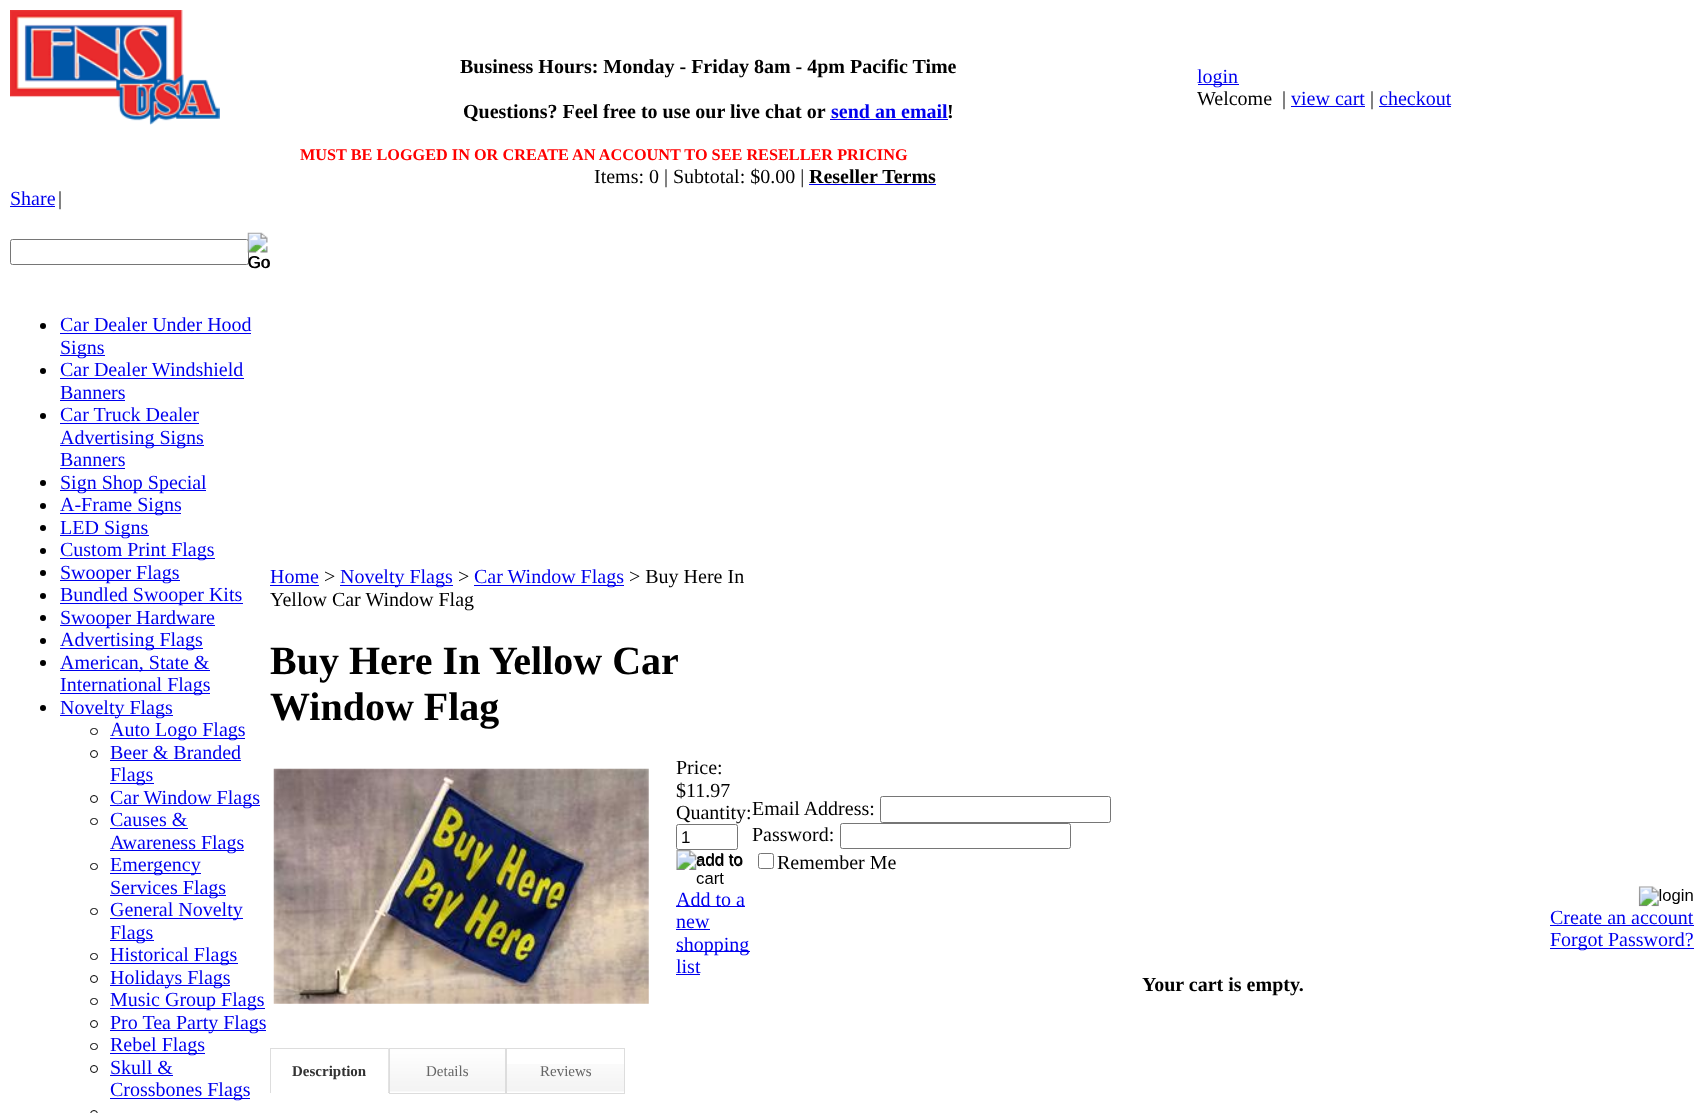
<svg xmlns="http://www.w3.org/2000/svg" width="1703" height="1113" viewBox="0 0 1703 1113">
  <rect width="100%" height="100%" fill="#ffffff"/>
  <image x="10" y="10" width="210" height="115" href="img1.png"/>
  <text x="460" y="73" font-family="Liberation Serif" font-size="20" font-weight="bold" fill="#000000">Business Hours: Monday - Friday 8am - 4pm Pacific Time</text>
  <text x="463" y="118" font-family="Liberation Serif" font-size="20" font-weight="bold" fill="#000000">Questions? Feel free to use our live chat or</text>
  <text x="831" y="118" font-family="Liberation Serif" font-size="20" font-weight="bold" fill="#0000ee">send an email</text>
  <rect x="830" y="119" width="118" height="1" fill="#0000ee"/>
  <text x="947" y="118" font-family="Liberation Serif" font-size="20" font-weight="bold" fill="#000000">!</text>
  <text x="300" y="160" font-family="Liberation Serif" font-size="16.25" font-weight="bold" fill="#ff0000">MUST BE LOGGED IN OR CREATE AN ACCOUNT TO SEE RESELLER PRICING</text>
  <rect x="1198" y="84" width="41" height="1" fill="#0000ee"/>
  <text x="1197" y="83" font-family="Liberation Serif" font-size="20" fill="#0000ee">login</text>
  <text x="1197" y="105" font-family="Liberation Serif" font-size="20" fill="#000000" xml:space="preserve">Welcome  |</text>
  <text x="1291" y="105" font-family="Liberation Serif" font-size="20" fill="#0000ee">view cart</text>
  <rect x="1291" y="106" width="74" height="1" fill="#0000ee"/>
  <text x="1370" y="105" font-family="Liberation Serif" font-size="20" fill="#000000">|</text>
  <text x="1379" y="105" font-family="Liberation Serif" font-size="20" fill="#0000ee">checkout</text>
  <rect x="1379" y="106" width="72" height="1" fill="#0000ee"/>
  <text x="594" y="183" font-family="Liberation Serif" font-size="20" fill="#000000">Items: 0 | Subtotal: $0.00 |</text>
  <text x="809" y="183" font-family="Liberation Serif" font-size="20" font-weight="bold" fill="#000000">Reseller Terms</text>
  <rect x="809" y="184" width="127" height="1" fill="#0000ee"/>
  <text x="10" y="205" font-family="Liberation Serif" font-size="20" fill="#0000ee">Share</text>
  <rect x="10" y="206" width="45" height="1" fill="#0000ee"/>
  <text x="58" y="205" font-family="Liberation Serif" font-size="20" fill="#000000">|</text>
  <rect x="10.5" y="239.5" width="238" height="25" rx="2" fill="none" stroke="#767676"/>
  <image x="247" y="232" width="22" height="36" href="img2.png"/>
  <text x="248" y="268" font-family="Liberation Sans" font-size="17" fill="#000000">Go</text>
  <circle cx="43" cy="326" r="3" fill="#000000"/>
  <text x="60" y="331" font-family="Liberation Serif" font-size="20" fill="#0000ee">Car Dealer Under Hood</text>
  <rect x="60" y="333" width="191" height="1" fill="#0000ee"/>
  <rect x="60" y="355" width="45" height="1" fill="#0000ee"/>
  <text x="60" y="354" font-family="Liberation Serif" font-size="20" fill="#0000ee">Signs</text>
  <circle cx="43" cy="371" r="3" fill="#000000"/>
  <text x="60" y="376" font-family="Liberation Serif" font-size="20" fill="#0000ee">Car Dealer Windshield</text>
  <rect x="60" y="378" width="184" height="1" fill="#0000ee"/>
  <text x="60" y="399" font-family="Liberation Serif" font-size="20" fill="#0000ee">Banners</text>
  <rect x="60" y="400" width="65" height="1" fill="#0000ee"/>
  <circle cx="43" cy="416" r="3" fill="#000000"/>
  <text x="60" y="421" font-family="Liberation Serif" font-size="20" fill="#0000ee">Car Truck Dealer</text>
  <rect x="60" y="423" width="139" height="1" fill="#0000ee"/>
  <rect x="60" y="445" width="144" height="1" fill="#0000ee"/>
  <text x="60" y="444" font-family="Liberation Serif" font-size="20" fill="#0000ee">Advertising Signs</text>
  <text x="60" y="466" font-family="Liberation Serif" font-size="20" fill="#0000ee">Banners</text>
  <rect x="60" y="468" width="65" height="1" fill="#0000ee"/>
  <circle cx="43" cy="483" r="3" fill="#000000"/>
  <rect x="60" y="490" width="146" height="1" fill="#0000ee"/>
  <text x="60" y="489" font-family="Liberation Serif" font-size="20" fill="#0000ee">Sign Shop Special</text>
  <circle cx="43" cy="506" r="3" fill="#000000"/>
  <rect x="60" y="513" width="121" height="1" fill="#0000ee"/>
  <text x="60" y="511" font-family="Liberation Serif" font-size="20" fill="#0000ee">A-Frame Signs</text>
  <circle cx="43" cy="528" r="3" fill="#000000"/>
  <rect x="60" y="535" width="89" height="1" fill="#0000ee"/>
  <text x="60" y="534" font-family="Liberation Serif" font-size="20" fill="#0000ee">LED Signs</text>
  <circle cx="43" cy="551" r="3" fill="#000000"/>
  <rect x="60" y="558" width="155" height="1" fill="#0000ee"/>
  <text x="60" y="556" font-family="Liberation Serif" font-size="20" fill="#0000ee">Custom Print Flags</text>
  <circle cx="43" cy="573" r="3" fill="#000000"/>
  <rect x="60" y="580" width="120" height="1" fill="#0000ee"/>
  <text x="60" y="579" font-family="Liberation Serif" font-size="20" fill="#0000ee">Swooper Flags</text>
  <circle cx="43" cy="596" r="3" fill="#000000"/>
  <rect x="60" y="603" width="183" height="1" fill="#0000ee"/>
  <text x="60" y="601" font-family="Liberation Serif" font-size="20" fill="#0000ee">Bundled Swooper Kits</text>
  <circle cx="43" cy="618" r="3" fill="#000000"/>
  <rect x="60" y="625" width="155" height="1" fill="#0000ee"/>
  <text x="60" y="624" font-family="Liberation Serif" font-size="20" fill="#0000ee">Swooper Hardware</text>
  <circle cx="43" cy="641" r="3" fill="#000000"/>
  <rect x="60" y="648" width="143" height="1" fill="#0000ee"/>
  <text x="60" y="646" font-family="Liberation Serif" font-size="20" fill="#0000ee">Advertising Flags</text>
  <circle cx="43" cy="663" r="3" fill="#000000"/>
  <rect x="60" y="670" width="150" height="1" fill="#0000ee"/>
  <text x="60" y="669" font-family="Liberation Serif" font-size="20" fill="#0000ee">American, State &amp;</text>
  <rect x="60" y="693" width="150" height="1" fill="#0000ee"/>
  <text x="60" y="691" font-family="Liberation Serif" font-size="20" fill="#0000ee">International Flags</text>
  <circle cx="43" cy="708" r="3" fill="#000000"/>
  <rect x="60" y="715" width="113" height="1" fill="#0000ee"/>
  <text x="60" y="714" font-family="Liberation Serif" font-size="20" fill="#0000ee">Novelty Flags</text>
  <rect x="90.5" y="728.5" width="7" height="6" rx="3" fill="none" stroke="#000000"/>
  <rect x="110" y="738" width="135" height="1" fill="#0000ee"/>
  <text x="110" y="736" font-family="Liberation Serif" font-size="20" fill="#0000ee">Auto Logo Flags</text>
  <circle cx="94" cy="754" r="3.5" fill="none" stroke="#000000"/>
  <text x="110" y="759" font-family="Liberation Serif" font-size="20" fill="#0000ee">Beer &amp; Branded</text>
  <rect x="110" y="760" width="131" height="1" fill="#0000ee"/>
  <rect x="110" y="783" width="44" height="1" fill="#0000ee"/>
  <text x="110" y="781" font-family="Liberation Serif" font-size="20" fill="#0000ee">Flags</text>
  <circle cx="94" cy="799" r="3.5" fill="none" stroke="#000000"/>
  <rect x="110" y="805" width="150" height="1" fill="#0000ee"/>
  <text x="110" y="804" font-family="Liberation Serif" font-size="20" fill="#0000ee">Car Window Flags</text>
  <rect x="90.5" y="818.5" width="7" height="6" rx="3" fill="none" stroke="#000000"/>
  <text x="110" y="826" font-family="Liberation Serif" font-size="20" fill="#0000ee">Causes &amp;</text>
  <rect x="110" y="828" width="78" height="1" fill="#0000ee"/>
  <rect x="110" y="850" width="134" height="1" fill="#0000ee"/>
  <text x="110" y="849" font-family="Liberation Serif" font-size="20" fill="#0000ee">Awareness Flags</text>
  <rect x="90.5" y="863.5" width="7" height="6" rx="3" fill="none" stroke="#000000"/>
  <rect x="110" y="873" width="91" height="1" fill="#0000ee"/>
  <text x="110" y="871" font-family="Liberation Serif" font-size="20" fill="#0000ee">Emergency</text>
  <rect x="110" y="895" width="116" height="1" fill="#0000ee"/>
  <text x="110" y="894" font-family="Liberation Serif" font-size="20" fill="#0000ee">Services Flags</text>
  <rect x="90.5" y="908.5" width="7" height="6" rx="3" fill="none" stroke="#000000"/>
  <rect x="110" y="918" width="133" height="1" fill="#0000ee"/>
  <text x="110" y="916" font-family="Liberation Serif" font-size="20" fill="#0000ee">General Novelty</text>
  <rect x="110" y="940" width="44" height="1" fill="#0000ee"/>
  <text x="110" y="939" font-family="Liberation Serif" font-size="20" fill="#0000ee">Flags</text>
  <rect x="90.5" y="953.5" width="7" height="6" rx="3" fill="none" stroke="#000000"/>
  <rect x="110" y="963" width="128" height="1" fill="#0000ee"/>
  <text x="110" y="961" font-family="Liberation Serif" font-size="20" fill="#0000ee">Historical Flags</text>
  <circle cx="94" cy="979" r="3.5" fill="none" stroke="#000000"/>
  <rect x="110" y="985" width="120" height="1" fill="#0000ee"/>
  <text x="110" y="984" font-family="Liberation Serif" font-size="20" fill="#0000ee">Holidays Flags</text>
  <rect x="90.5" y="998.5" width="7" height="6" rx="3" fill="none" stroke="#000000"/>
  <rect x="110" y="1008" width="155" height="1" fill="#0000ee"/>
  <text x="110" y="1006" font-family="Liberation Serif" font-size="20" fill="#0000ee">Music Group Flags</text>
  <circle cx="94" cy="1024" r="3.5" fill="none" stroke="#000000"/>
  <rect x="110" y="1030" width="156" height="1" fill="#0000ee"/>
  <text x="110" y="1029" font-family="Liberation Serif" font-size="20" fill="#0000ee">Pro Tea Party Flags</text>
  <rect x="90.5" y="1043.5" width="7" height="6" rx="3" fill="none" stroke="#000000"/>
  <rect x="110" y="1053" width="95" height="1" fill="#0000ee"/>
  <text x="110" y="1051" font-family="Liberation Serif" font-size="20" fill="#0000ee">Rebel Flags</text>
  <circle cx="94" cy="1069" r="3.5" fill="none" stroke="#000000"/>
  <text x="110" y="1074" font-family="Liberation Serif" font-size="20" fill="#0000ee">Skull &amp;</text>
  <rect x="110" y="1075" width="63" height="1" fill="#0000ee"/>
  <rect x="110" y="1098" width="140" height="1" fill="#0000ee"/>
  <text x="110" y="1096" font-family="Liberation Serif" font-size="20" fill="#0000ee">Crossbones Flags</text>
  <circle cx="94" cy="1114" r="3.5" fill="none" stroke="#000000"/>
  <text x="270" y="583" font-family="Liberation Serif" font-size="20" fill="#0000ee">Home</text>
  <rect x="270" y="585" width="49" height="1" fill="#0000ee"/>
  <text x="324" y="583" font-family="Liberation Serif" font-size="20" fill="#000000">&gt;</text>
  <rect x="340" y="585" width="113" height="1" fill="#0000ee"/>
  <text x="340" y="583" font-family="Liberation Serif" font-size="20" fill="#0000ee">Novelty Flags</text>
  <text x="458" y="583" font-family="Liberation Serif" font-size="20" fill="#000000">&gt;</text>
  <rect x="474" y="585" width="150" height="1" fill="#0000ee"/>
  <text x="474" y="583" font-family="Liberation Serif" font-size="20" fill="#0000ee">Car Window Flags</text>
  <text x="629" y="583" font-family="Liberation Serif" font-size="20" fill="#000000">&gt; Buy Here In</text>
  <text x="270" y="606" font-family="Liberation Serif" font-size="20" fill="#000000">Yellow Car Window Flag</text>
  <text x="270" y="674" font-family="Liberation Serif" font-size="40" font-weight="bold" fill="#000000">Buy Here In Yellow Car</text>
  <text x="270" y="720" font-family="Liberation Serif" font-size="40" font-weight="bold" fill="#000000">Window Flag</text>
  <image x="273" y="768" width="376" height="236" href="img3.png"/>
  <text x="676" y="774" font-family="Liberation Serif" font-size="20" fill="#000000">Price:</text>
  <text x="676" y="797" font-family="Liberation Serif" font-size="20" fill="#000000">$11.97</text>
  <text x="676" y="819" font-family="Liberation Serif" font-size="20" fill="#000000">Quantity:</text>
  <rect x="676.5" y="824.5" width="61" height="25" rx="2" fill="none" stroke="#767676"/>
  <text x="681" y="843" font-family="Liberation Sans" font-size="17" fill="#000000">1</text>
  <image x="676" y="850" width="66" height="34" href="img4.png"/>
  <text x="696" y="866" font-family="Liberation Sans" font-size="17" fill="#000000">add to</text>
  <rect x="676" y="906" width="69" height="1" fill="#0000ee"/>
  <text x="676" y="906" font-family="Liberation Serif" font-size="20" fill="#0000ee">Add to a</text>
  <text x="676" y="928" font-family="Liberation Serif" font-size="20" fill="#0000ee">new</text>
  <rect x="676" y="929" width="34" height="1" fill="#0000ee"/>
  <rect x="676" y="951" width="74" height="1" fill="#0000ee"/>
  <text x="676" y="951" font-family="Liberation Serif" font-size="20" fill="#0000ee">shopping</text>
  <text x="676" y="973" font-family="Liberation Serif" font-size="20" fill="#0000ee">list</text>
  <rect x="676" y="974" width="24" height="1" fill="#0000ee"/>
  <rect x="270" y="1048" width="119" height="1" fill="#dddddd"/>
  <rect x="388" y="1048" width="1" height="45" fill="#dddddd"/>
  <rect x="270" y="1048" width="1" height="45" fill="#dddddd"/>
  <text x="292" y="1076" font-family="Liberation Serif" font-size="15" font-weight="bold" fill="#333333">Description</text>
  <image x="388" y="1048" width="117" height="44" href="img5.png"/>
  <rect x="389.5" y="1048.5" width="116" height="45" fill="none" stroke="#dddddd"/>
  <text x="426" y="1076" font-family="Liberation Serif" font-size="15" fill="#666666">Details</text>
  <image x="507" y="1064" width="117" height="28" href="img6.png"/>
  <rect x="506.5" y="1048.5" width="118" height="45" fill="none" stroke="#dddddd"/>
  <text x="540" y="1076" font-family="Liberation Serif" font-size="15" fill="#666666">Reviews</text>
  <text x="752" y="815" font-family="Liberation Serif" font-size="20" fill="#000000">Email Address:</text>
  <rect x="880.5" y="796.5" width="230" height="26" rx="2" fill="none" stroke="#767676"/>
  <text x="752" y="841" font-family="Liberation Serif" font-size="20" fill="#000000">Password:</text>
  <rect x="840.5" y="823.5" width="230" height="25" rx="2" fill="none" stroke="#767676"/>
  <rect x="758.5" y="853.5" width="15" height="15" rx="2" fill="none" stroke="#767676"/>
  <text x="777" y="869" font-family="Liberation Serif" font-size="20" fill="#000000">Remember Me</text>
  <image x="1638" y="886" width="55" height="21" href="img7.png"/>
  <text x="1550" y="924" font-family="Liberation Serif" font-size="20" fill="#0000ee">Create an account</text>
  <rect x="1550" y="925" width="144" height="1" fill="#0000ee"/>
  <rect x="1550" y="948" width="144" height="1" fill="#0000ee"/>
  <text x="1550" y="946" font-family="Liberation Serif" font-size="20" fill="#0000ee">Forgot Password?</text>
  <text x="1142" y="991" font-family="Liberation Serif" font-size="20" font-weight="bold" fill="#000000">Your cart is empty.</text>
</svg>
